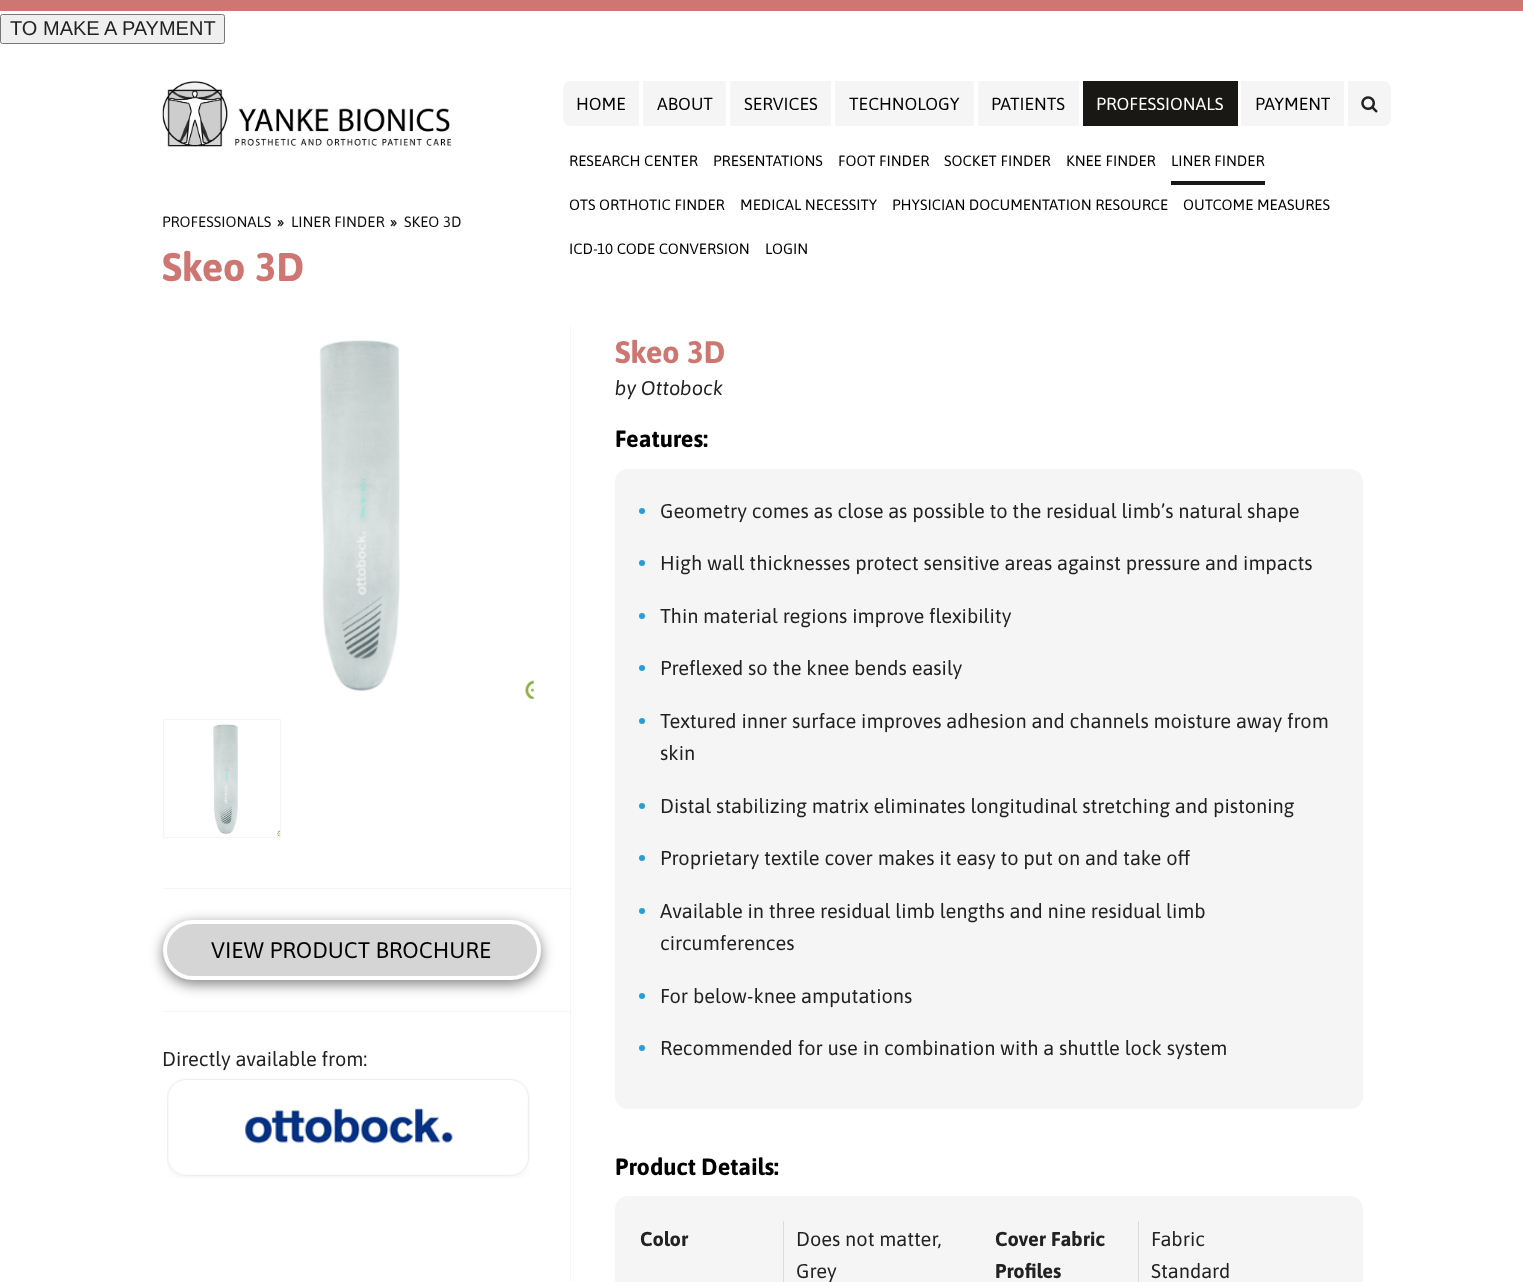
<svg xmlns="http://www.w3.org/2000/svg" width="1523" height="1282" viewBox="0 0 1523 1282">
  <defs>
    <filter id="blur1" x="-50%" y="-200%" width="200%" height="500%"><feGaussianBlur stdDeviation="7"/></filter>
  </defs>
  <rect width="100%" height="100%" fill="#ffffff"/>
  <rect x="0" y="0" width="1523" height="11" fill="#cd7672"/>
  <rect x="0.5" y="14.5" width="224" height="29" rx="2" fill="#efefef" stroke="#767676"/>
  <text x="10" y="35" font-family="Liberation Sans" font-size="20" fill="#222222">TO MAKE A PAYMENT</text>
  <image x="162" y="81" width="290" height="66" href="img1.png"/>
  <rect x="1083" y="81" width="155" height="45" fill="#191814"/>
  <text x="1096" y="110" font-family="Asap" font-size="17.5" fill="#ffffff">PROFESSIONALS</text>
  <text x="569" y="166" font-family="Asap" font-size="15" fill="#000000">RESEARCH CENTER</text>
  <text x="713" y="166" font-family="Asap" font-size="15" fill="#000000">PRESENTATIONS</text>
  <text x="838" y="166" font-family="Asap" font-size="15" fill="#000000">FOOT FINDER</text>
  <text x="944" y="166" font-family="Asap" font-size="15" fill="#000000">SOCKET FINDER</text>
  <text x="1066" y="166" font-family="Asap" font-size="15" fill="#000000">KNEE FINDER</text>
  <rect x="1171" y="181" width="94" height="4" fill="#191814"/>
  <text x="1171" y="166" font-family="Asap" font-size="15" fill="#000000">LINER FINDER</text>
  <text x="569" y="210" font-family="Asap" font-size="15" fill="#000000">OTS ORTHOTIC FINDER</text>
  <text x="740" y="210" font-family="Asap" font-size="15" fill="#000000">MEDICAL NECESSITY</text>
  <text x="892" y="210" font-family="Asap" font-size="15" fill="#000000">PHYSICIAN DOCUMENTATION RESOURCE</text>
  <text x="1183" y="210" font-family="Asap" font-size="15" fill="#000000">OUTCOME MEASURES</text>
  <text x="569" y="254" font-family="Asap" font-size="15" fill="#000000">ICD-10 CODE CONVERSION</text>
  <text x="765" y="254" font-family="Asap" font-size="15" fill="#000000">LOGIN</text>
  <path d="M1348 81H1383C1387.5 81 1391 84.5 1391 89V118C1391 122.5 1387.5 126 1383 126H1348Z" fill="#f5f5f5"/>
  <image x="1361" y="96" width="17" height="17" href="img2.png"/>
  <path d="M571 81H639V126H571C566.5 126 563 122.5 563 118V89C563 84.5 566.5 81 571 81Z" fill="#f5f5f5"/>
  <text x="576" y="110" font-family="Asap" font-size="17.5" fill="#000000">HOME</text>
  <rect x="643" y="81" width="83" height="45" fill="#f5f5f5"/>
  <text x="657" y="110" font-family="Asap" font-size="17.5" fill="#000000">ABOUT</text>
  <rect x="730" y="81" width="101" height="45" fill="#f5f5f5"/>
  <text x="744" y="110" font-family="Asap" font-size="17.5" fill="#000000">SERVICES</text>
  <rect x="835" y="81" width="139" height="45" fill="#f5f5f5"/>
  <text x="849" y="110" font-family="Asap" font-size="17.5" fill="#000000">TECHNOLOGY</text>
  <rect x="978" y="81" width="101" height="45" fill="#f5f5f5"/>
  <text x="991" y="110" font-family="Asap" font-size="17.5" fill="#000000">PATIENTS</text>
  <rect x="1241" y="81" width="103" height="45" fill="#f5f5f5"/>
  <text x="1255" y="110" font-family="Asap" font-size="17.5" fill="#000000">PAYMENT</text>
  <text x="162" y="227" font-family="Asap" font-size="15" fill="#0f0f0f">PROFESSIONALS</text>
  <text x="277" y="227" font-family="Asap" font-size="15" font-weight="bold" fill="#222222">»</text>
  <text x="291" y="227" font-family="Asap" font-size="15" fill="#0f0f0f">LINER FINDER</text>
  <text x="390" y="227" font-family="Asap" font-size="15" font-weight="bold" fill="#222222">»</text>
  <text x="404" y="227" font-family="Asap" font-size="15" fill="#0f0f0f">SKEO 3D</text>
  <text x="162" y="281" font-family="Asap" font-size="40" font-weight="bold" fill="#cd7672">Skeo 3D</text>
  <image x="319" y="340" width="215" height="359" href="img3.png"/>
  <rect x="163.5" y="719.5" width="117" height="118" fill="none" stroke="#f5f5f5"/>
  <image x="213" y="724" width="67" height="113" href="img4.png"/>
  <rect x="570" y="326" width="1" height="956" fill="#f5f5f5"/>
  <rect x="163" y="888" width="408" height="1" fill="#f5f5f5"/>
  <rect x="163" y="1011" width="408" height="1" fill="#f5f5f5"/>
  <rect x="163" y="924" width="378" height="60" rx="30" fill="#000000" fill-opacity="0.5" filter="url(#blur1)"/>
  <rect x="165" y="922" width="374" height="56" rx="28" fill="#d5d5d5" stroke="#ffffff" stroke-width="4"/>
  <text x="211" y="958" font-family="Asap" font-size="22.5" fill="#000000">VIEW PRODUCT BROCHURE</text>
  <text x="162" y="1066" font-family="Asap" font-size="20" fill="#222222">Directly available from:</text>
  <image x="167" y="1078" width="363" height="100" href="img5.png"/>
  <text x="615" y="363" font-family="Asap" font-size="31" font-weight="bold" fill="#cd7672">Skeo 3D</text>
  <text x="615" y="395" font-family="Asap" font-size="20" font-style="italic" fill="#222222">by Ottobock</text>
  <text x="615" y="447" font-family="Asap" font-size="23.5" font-weight="bold" fill="#000000">Features:</text>
  <rect x="615" y="469" width="748" height="640" rx="13" fill="#f5f5f5"/>
  <circle cx="642" cy="511" r="3" fill="#2b9dd5"/>
  <text x="660" y="518" font-family="Asap" font-size="20" fill="#222222">Geometry comes as close as possible to the residual limb’s natural shape</text>
  <circle cx="642" cy="563" r="3" fill="#2b9dd5"/>
  <text x="660" y="570" font-family="Asap" font-size="20" fill="#222222">High wall thicknesses protect sensitive areas against pressure and impacts</text>
  <circle cx="642" cy="616" r="3" fill="#2b9dd5"/>
  <text x="660" y="623" font-family="Asap" font-size="20" fill="#222222">Thin material regions improve flexibility</text>
  <circle cx="642" cy="668" r="3" fill="#2b9dd5"/>
  <text x="660" y="675" font-family="Asap" font-size="20" fill="#222222">Preflexed so the knee bends easily</text>
  <circle cx="642" cy="721" r="3" fill="#2b9dd5"/>
  <text x="660" y="728" font-family="Asap" font-size="20" fill="#222222">Textured inner surface improves adhesion and channels moisture away from</text>
  <text x="660" y="760" font-family="Asap" font-size="20" fill="#222222">skin</text>
  <circle cx="642" cy="806" r="3" fill="#2b9dd5"/>
  <text x="660" y="813" font-family="Asap" font-size="20" fill="#222222">Distal stabilizing matrix eliminates longitudinal stretching and pistoning</text>
  <circle cx="642" cy="858" r="3" fill="#2b9dd5"/>
  <text x="660" y="865" font-family="Asap" font-size="20" fill="#222222">Proprietary textile cover makes it easy to put on and take off</text>
  <circle cx="642" cy="911" r="3" fill="#2b9dd5"/>
  <text x="660" y="918" font-family="Asap" font-size="20" fill="#222222">Available in three residual limb lengths and nine residual limb</text>
  <text x="660" y="950" font-family="Asap" font-size="20" fill="#222222">circumferences</text>
  <circle cx="642" cy="996" r="3" fill="#2b9dd5"/>
  <text x="660" y="1003" font-family="Asap" font-size="20" fill="#222222">For below-knee amputations</text>
  <circle cx="642" cy="1048" r="3" fill="#2b9dd5"/>
  <text x="660" y="1055" font-family="Asap" font-size="20" fill="#222222">Recommended for use in combination with a shuttle lock system</text>
  <text x="615" y="1175" font-family="Asap" font-size="23.5" font-weight="bold" fill="#000000">Product Details:</text>
  <rect x="615" y="1196" width="748" height="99" rx="13" fill="#f5f5f5"/>
  <text x="640" y="1246" font-family="Asap" font-size="20" font-weight="bold" fill="#222222">Color</text>
  <rect x="783" y="1221" width="1" height="61" fill="#dcdcdc"/>
  <text x="796" y="1246" font-family="Asap" font-size="20" fill="#222222">Does not matter,</text>
  <text x="796" y="1278" font-family="Asap" font-size="20" fill="#222222">Grey</text>
  <rect x="1138" y="1221" width="1" height="61" fill="#dcdcdc"/>
  <text x="995" y="1246" font-family="Asap" font-size="20" font-weight="bold" fill="#222222">Cover Fabric</text>
  <text x="1151" y="1246" font-family="Asap" font-size="20" fill="#222222">Fabric</text>
  <text x="995" y="1278" font-family="Asap" font-size="20" font-weight="bold" fill="#222222">Profiles</text>
  <text x="1151" y="1278" font-family="Asap" font-size="20" fill="#222222">Standard</text>
</svg>
